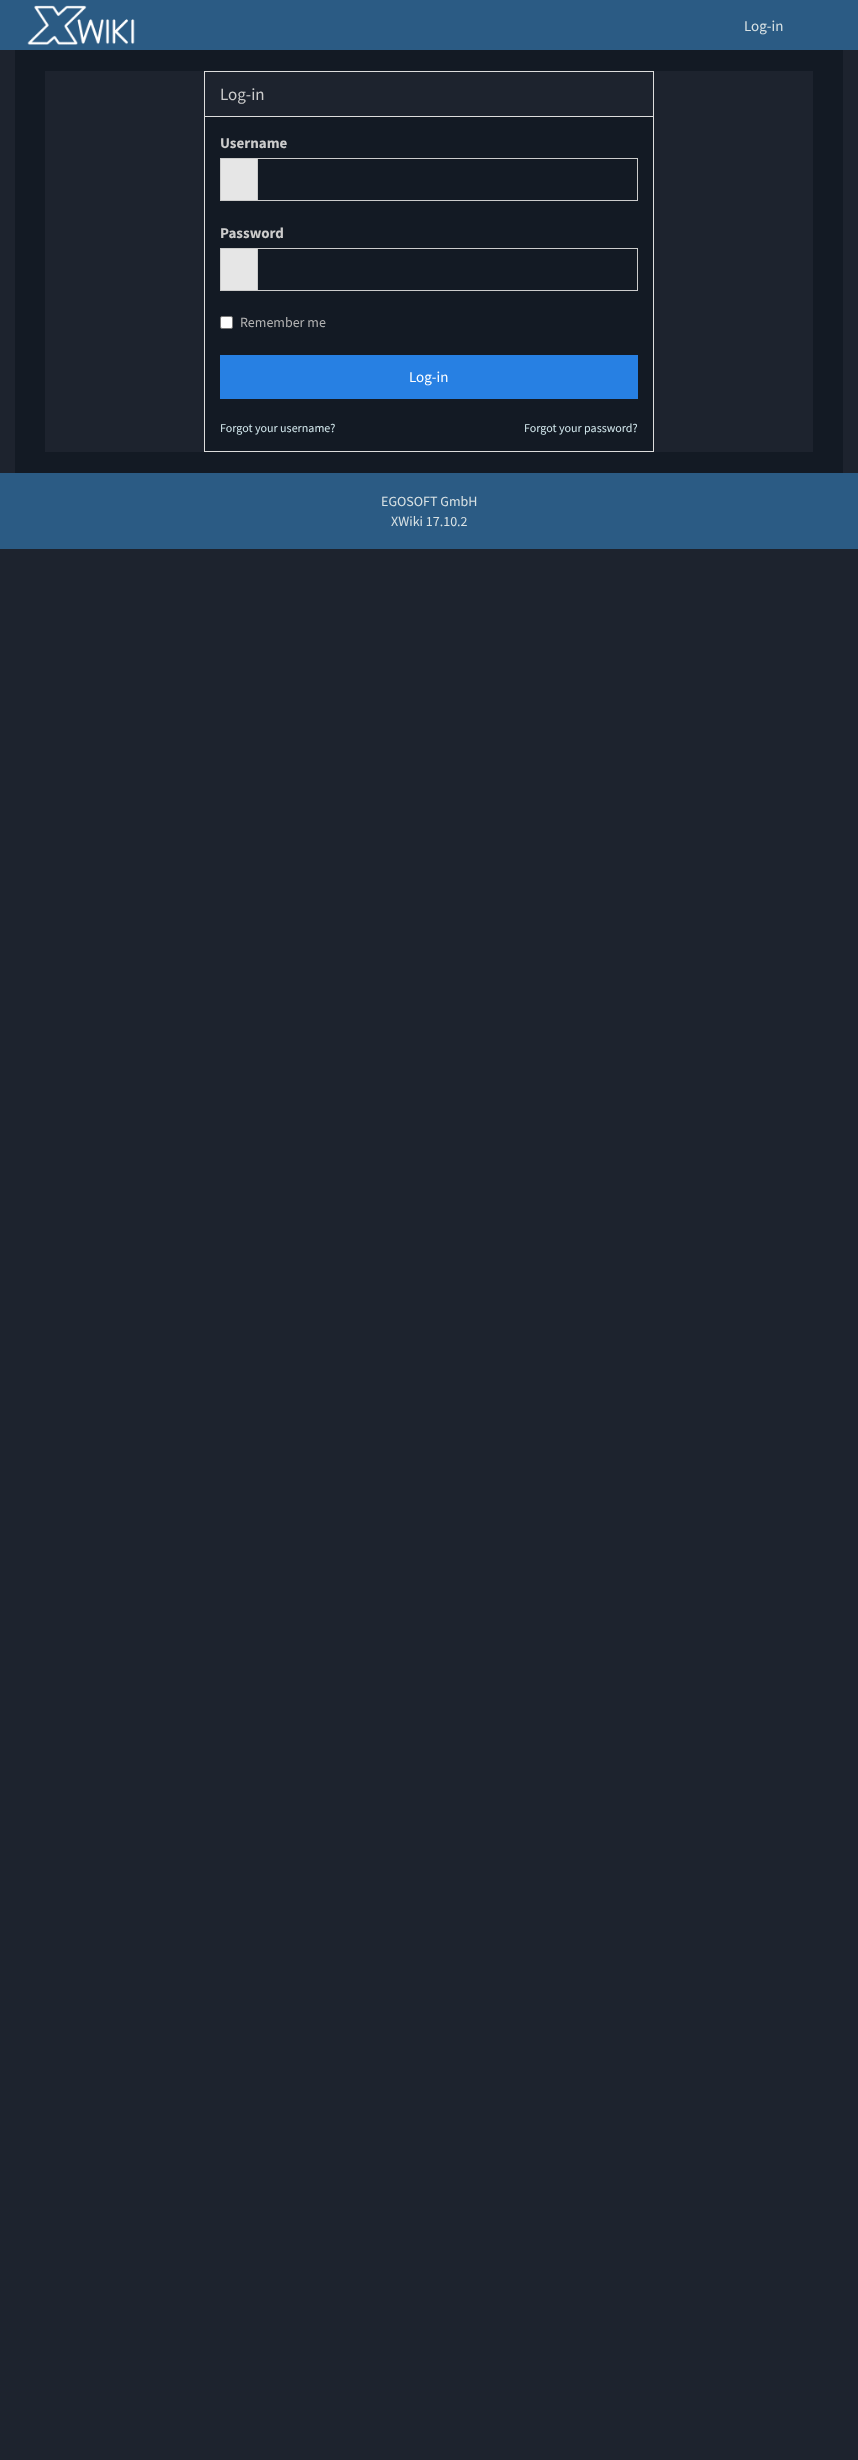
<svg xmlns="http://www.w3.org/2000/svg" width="858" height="2460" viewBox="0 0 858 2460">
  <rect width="100%" height="100%" fill="#1d232e"/>
  <rect x="0" y="0" width="858" height="50" fill="#2b5b84"/>
  <image x="27" y="5" width="108" height="40" href="img1.png"/>
  <text x="744" y="31" font-family="Source Sans Pro" font-size="15" fill="#d9e2e4">Log-in</text>
  <rect x="15" y="50" width="828" height="423" fill="#131a24"/>
  <rect x="45" y="71" width="768" height="381" fill="#1d232e"/>
  <rect x="205" y="117" width="448" height="334" fill="#131a24"/>
  <rect x="204.5" y="71.5" width="449" height="380" fill="none" stroke="#dddddd"/>
  <rect x="205" y="116" width="448" height="1" fill="#dddddd"/>
  <text x="220" y="100" font-family="Source Sans Pro" font-size="17" fill="#cccccc">Log-in</text>
  <text x="220" y="148" font-family="Source Sans Pro" font-size="15" font-weight="bold" fill="#cccccc">Username</text>
  <rect x="221" y="159" width="36" height="41" fill="#e6e6e6"/>
  <rect x="220" y="158" width="37" height="1" fill="#cccccc"/>
  <rect x="220" y="200" width="37" height="1" fill="#cccccc"/>
  <rect x="220" y="158" width="1" height="43" fill="#cccccc"/>
  <rect x="258" y="159" width="379" height="1" fill="#121821"/>
  <rect x="257.5" y="158.5" width="380" height="42" fill="none" stroke="#cccccc"/>
  <text x="220" y="238" font-family="Source Sans Pro" font-size="15" font-weight="bold" fill="#cccccc">Password</text>
  <rect x="221" y="249" width="36" height="41" fill="#e6e6e6"/>
  <rect x="220" y="248" width="37" height="1" fill="#cccccc"/>
  <rect x="220" y="290" width="37" height="1" fill="#cccccc"/>
  <rect x="220" y="248" width="1" height="43" fill="#cccccc"/>
  <rect x="258" y="249" width="379" height="1" fill="#121821"/>
  <rect x="257.5" y="248.5" width="380" height="42" fill="none" stroke="#cccccc"/>
  <rect x="220.5" y="316.5" width="12" height="12" rx="1.5" fill="#ffffff" stroke="#767676"/>
  <text x="240" y="327" font-family="Source Sans Pro" font-size="14" fill="#b3b3b3">Remember me</text>
  <rect x="220" y="355" width="418" height="44" fill="#2780e3"/>
  <text x="409" y="382" font-family="Source Sans Pro" font-size="15" fill="#ffffff">Log-in</text>
  <text x="220" y="432" font-family="Source Sans Pro" font-size="12" fill="#d3e8ed">Forgot your username?</text>
  <text x="524" y="432" font-family="Source Sans Pro" font-size="12" fill="#d3e8ed">Forgot your password?</text>
  <rect x="0" y="473" width="858" height="76" fill="#2b5b84"/>
  <text x="381" y="506" font-family="Source Sans Pro" font-size="14" fill="#d9e2e4">EGOSOFT GmbH</text>
  <text x="391" y="526" font-family="Source Sans Pro" font-size="14" fill="#d9e2e4">XWiki 17.10.2</text>
</svg>
